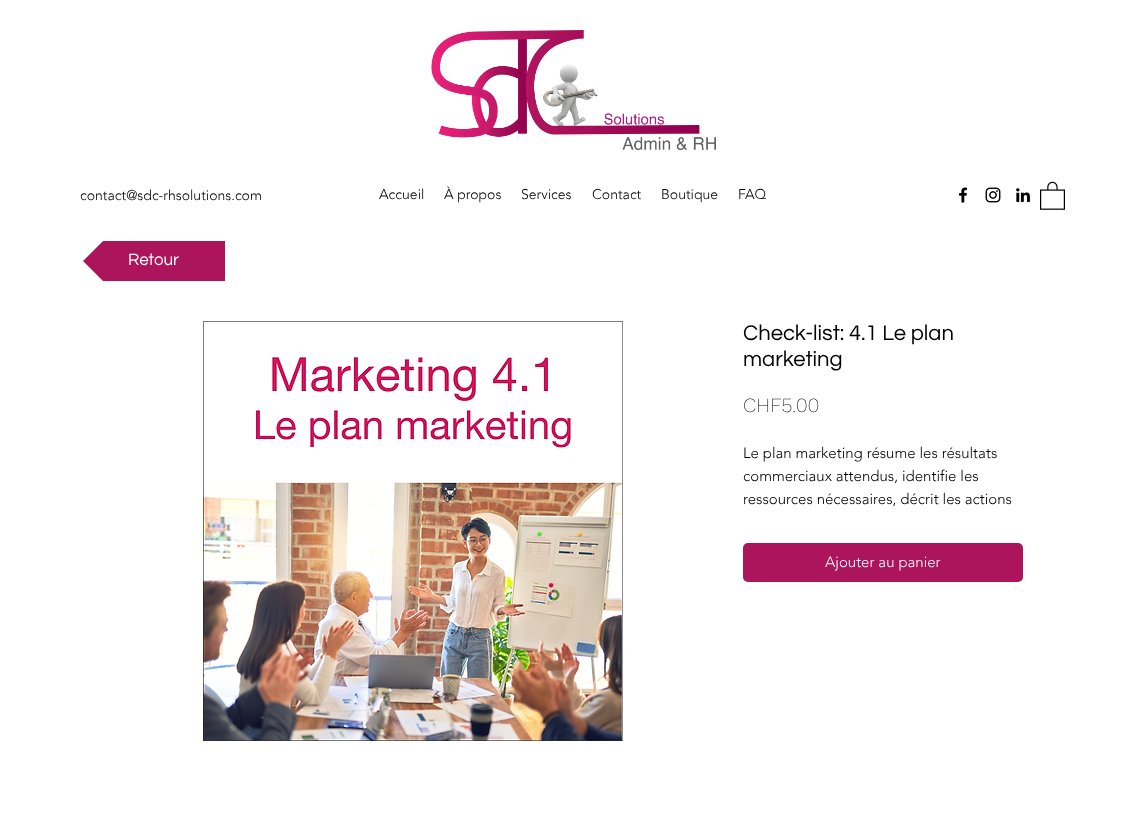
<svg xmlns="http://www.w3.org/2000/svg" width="1145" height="816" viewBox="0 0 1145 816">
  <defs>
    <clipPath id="clip1"><rect x="83" y="241" width="142" height="40"/></clipPath>
  </defs>
  <rect width="100%" height="100%" fill="#ffffff"/>
  <image x="431" y="30" width="285" height="120" href="img1.png"/>
  <text x="80" y="200" font-family="'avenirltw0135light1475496'" font-size="14" font-weight="300" fill="#000000">contact@sdc-rhsolutions.com</text>
  <text x="379" y="199" font-family="'avenirltw0135light1475496'" font-size="14" font-weight="300" fill="#000000">Accueil</text>
  <text x="444" y="199" font-family="'avenirltw0135light1475496'" font-size="14" font-weight="300" fill="#000000">À propos</text>
  <text x="521" y="199" font-family="'avenirltw0135light1475496'" font-size="14" font-weight="300" fill="#000000">Services</text>
  <text x="592" y="199" font-family="'avenirltw0135light1475496'" font-size="14" font-weight="300" fill="#000000">Contact</text>
  <text x="661" y="199" font-family="'avenirltw0135light1475496'" font-size="14" font-weight="300" fill="#000000">Boutique</text>
  <text x="738" y="199" font-family="'avenirltw0135light1475496'" font-size="14" font-weight="300" fill="#000000">FAQ</text>
  <image x="959" y="187" width="9" height="16" href="img2.png"/>
  <image x="985" y="187" width="16" height="16" href="img3.png"/>
  <image x="1016" y="188" width="15" height="15" href="img4.png"/>
  <image x="1040" y="181" width="25" height="29" href="img5.png"/>
  <g clip-path="url(#clip1)">
    <path d="M133 261H83L133 211ZM83 261H133V311Z" fill="#ac145c"/>
  </g>
  <rect x="133" y="241" width="92" height="40" fill="#ac145c"/>
  <text x="128" y="265" font-family="Questrial" font-size="17" fill="#ffffff">Retour</text>
  <image x="203" y="321" width="420" height="420" href="img6.png"/>
  <text x="743" y="340" font-family="Questrial" font-size="22" fill="#000000">Check-list: 4.1 Le plan</text>
  <text x="743" y="366" font-family="Questrial" font-size="22" fill="#000000">marketing</text>
  <text x="743" y="412" font-family="Work Sans" font-size="20" font-weight="200" fill="#000000">CHF5.00</text>
  <text x="743" y="458" font-family="'avenirltw0135light1475496'" font-size="15" font-weight="300" fill="#000000">Le plan marketing résume les résultats</text>
  <text x="743" y="481" font-family="'avenirltw0135light1475496'" font-size="15" font-weight="300" fill="#000000">commerciaux attendus, identifie les</text>
  <text x="743" y="504" font-family="'avenirltw0135light1475496'" font-size="15" font-weight="300" fill="#000000">ressources nécessaires, décrit les actions</text>
  <rect x="743" y="543" width="280" height="39" rx="5" fill="#ac145c"/>
  <text x="825" y="567" font-family="'avenirltw0135light1475496'" font-size="15" font-weight="300" fill="#ffffff">Ajouter au panier</text>
</svg>
